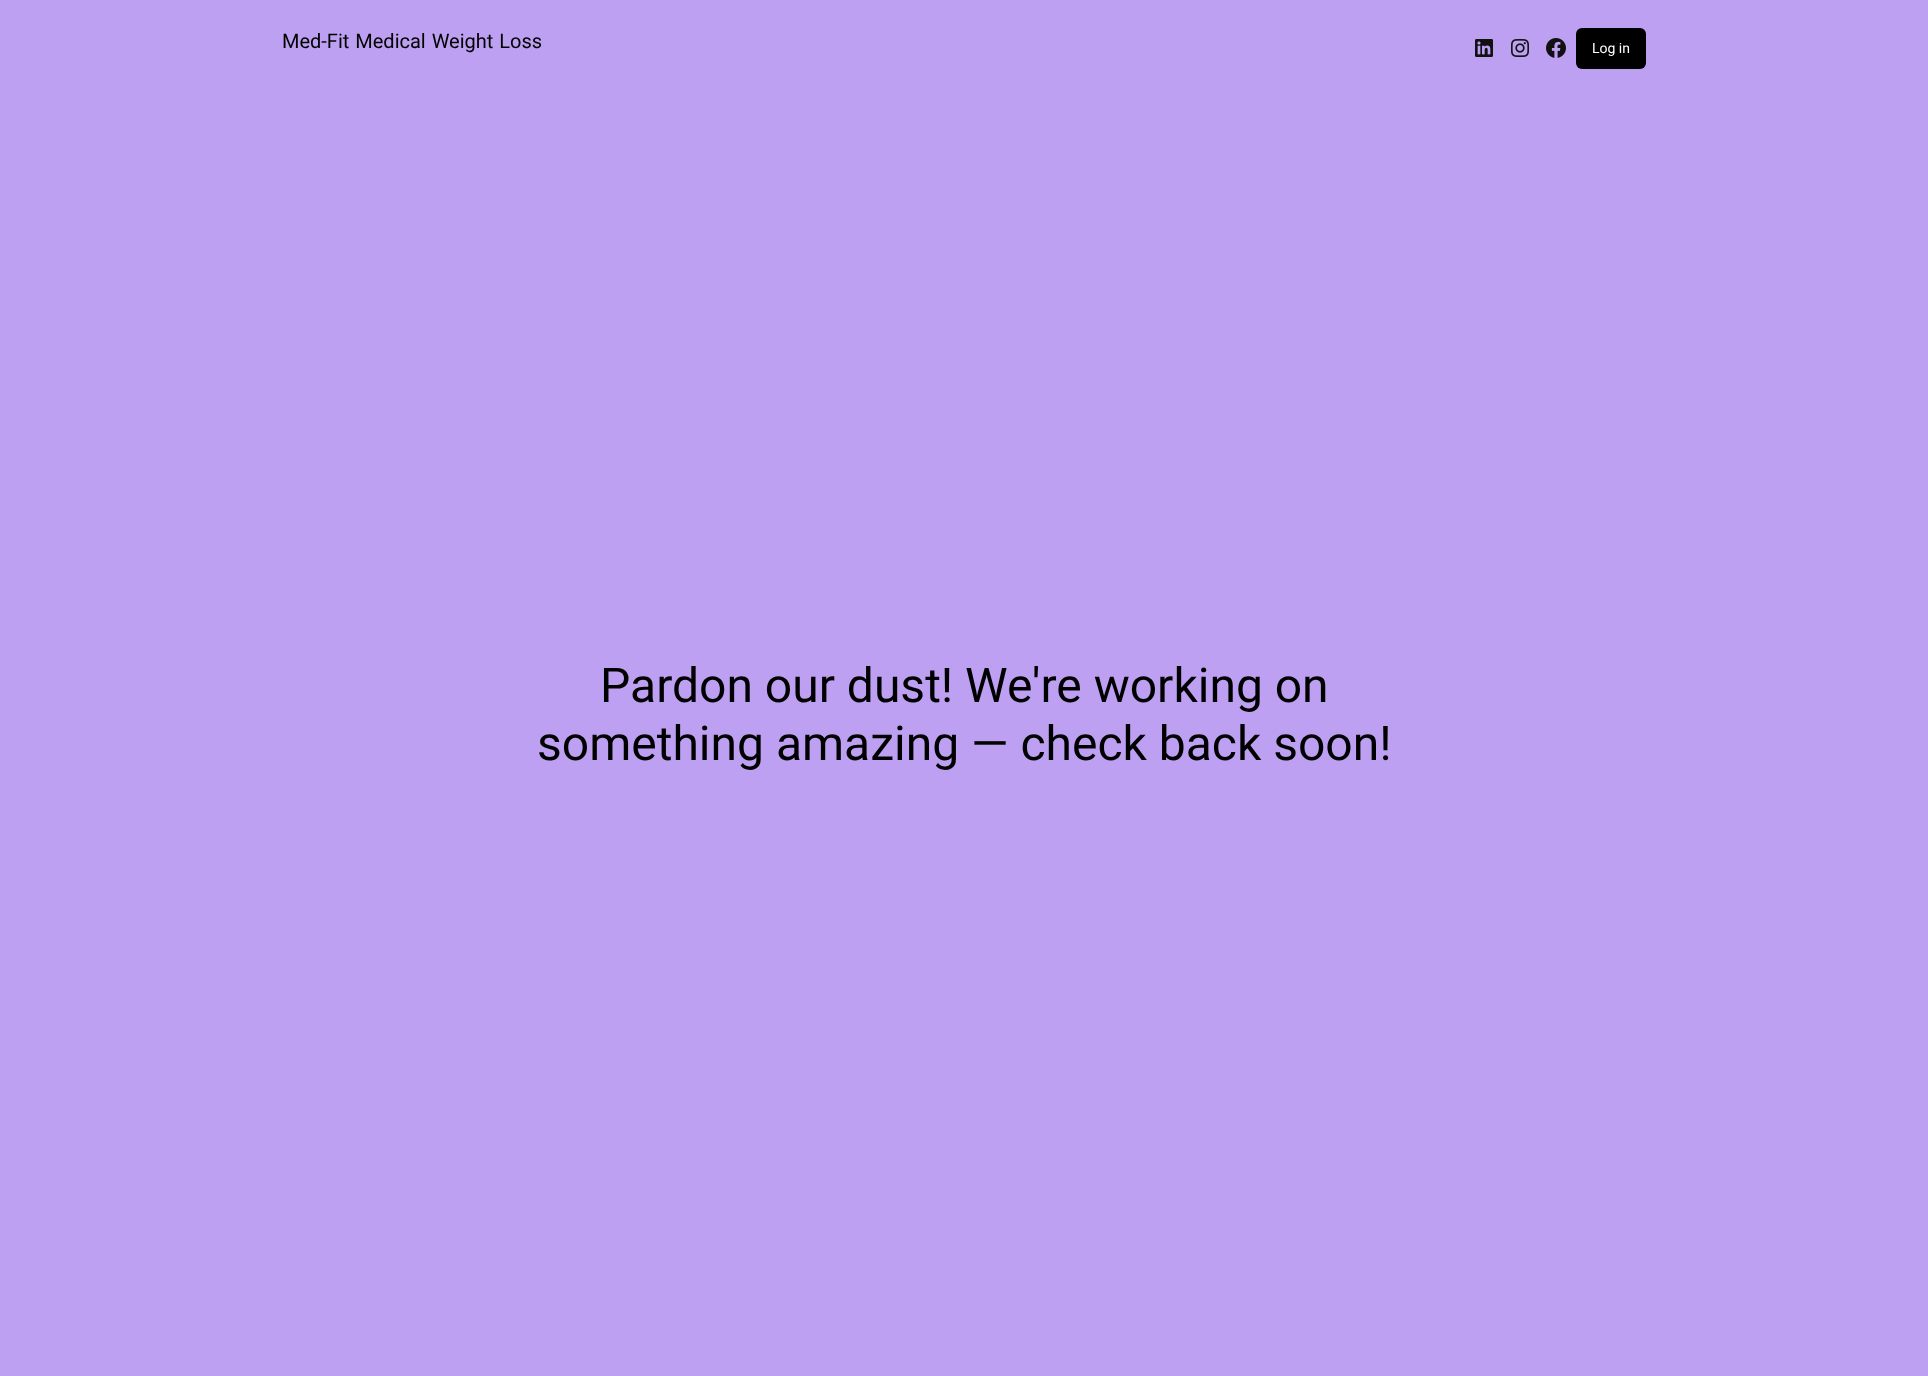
<svg xmlns="http://www.w3.org/2000/svg" width="1928" height="1376" viewBox="0 0 1928 1376">
  <rect width="100%" height="100%" fill="#bea0f2"/>
  <text x="282" y="48" word-spacing="1" font-family="Roboto" font-size="20" fill="#000000">Med-Fit Medical Weight Loss</text>
  <image x="1475" y="39" width="18" height="18" href="img1.png"/>
  <image x="1511" y="39" width="18" height="18" href="img2.png"/>
  <image x="1546" y="38" width="20" height="20" href="img3.png"/>
  <rect x="1576" y="28" width="70" height="41" rx="6" fill="#000000"/>
  <text x="1592" y="53" font-family="Roboto" font-size="14" fill="#ffffff">Log in</text>
  <text x="600" y="702" font-family="Roboto" font-size="48" fill="#000000">Pardon our dust! We're working on</text>
  <text x="537" y="760" font-family="Roboto" font-size="48" fill="#000000">something amazing — check back soon!</text>
</svg>
